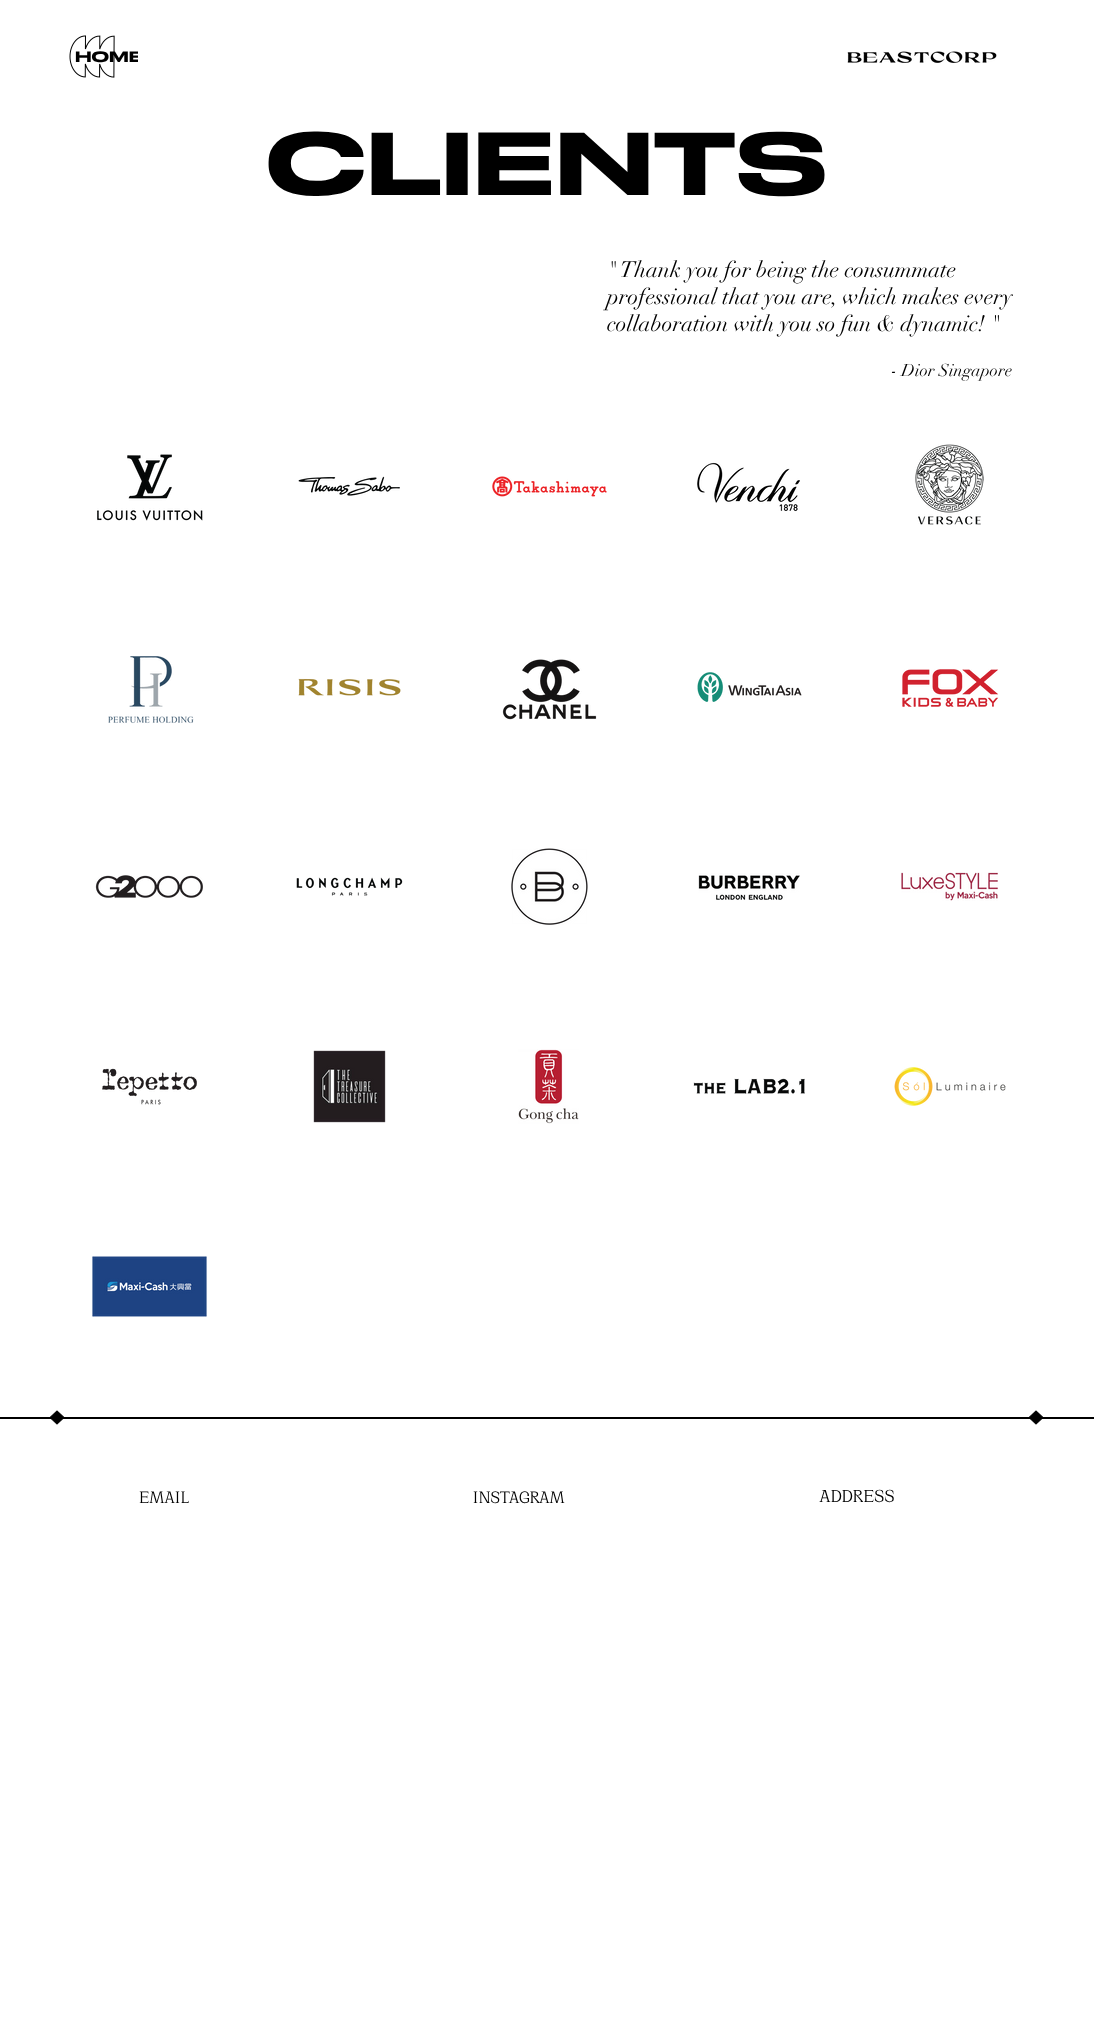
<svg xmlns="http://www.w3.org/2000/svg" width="1094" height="2042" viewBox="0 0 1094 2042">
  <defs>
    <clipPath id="clip1"><rect x="52" y="25" width="86" height="64"/></clipPath>
  </defs>
  <rect width="100%" height="100%" fill="#ffffff"/>
  <image x="69" y="35" width="46" height="43" href="img1.png"/>
  <g clip-path="url(#clip1)">
    <text x="75" y="62" font-family="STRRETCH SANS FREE" font-size="15" fill="#000000">HOME</text>
  </g>
  <image x="847" y="51" width="150" height="12" href="img2.png"/>
  <text x="266" y="195" font-family="STRRETCH SANS FREE" font-size="89" fill="#000000">CLIENTS</text>
  <text x="607" y="277" font-family="didot" font-size="22" fill="#000000">" Thank you for being the consummate</text>
  <text x="607" y="304" font-family="didot" font-size="22" fill="#000000">professional that you are, which makes every</text>
  <text x="607" y="331" font-family="didot" font-size="22" fill="#000000">collaboration with you so fun &amp; dynamic! "</text>
  <text x="891" y="376" font-family="didot" font-size="17" fill="#000000">- Dior Singapore</text>
  <image x="97" y="454" width="106" height="67" href="img3.png"/>
  <image x="298" y="476" width="102" height="20" href="img4.png"/>
  <image x="492" y="476" width="115" height="21" href="img5.png"/>
  <image x="697" y="462" width="103" height="50" href="img6.png"/>
  <image x="915" y="444" width="69" height="81" href="img7.png"/>
  <image x="108" y="656" width="86" height="68" href="img8.png"/>
  <image x="298" y="678" width="103" height="18" href="img9.png"/>
  <image x="502" y="659" width="95" height="61" href="img10.png"/>
  <image x="697" y="672" width="105" height="30" href="img11.png"/>
  <image x="902" y="669" width="97" height="38" href="img12.png"/>
  <image x="95" y="875" width="108" height="23" href="img13.png"/>
  <image x="296" y="877" width="107" height="19" href="img14.png"/>
  <image x="511" y="848" width="77" height="77" href="img15.png"/>
  <image x="698" y="873" width="102" height="27" href="img16.png"/>
  <image x="901" y="872" width="97" height="29" href="img17.png"/>
  <image x="102" y="1068" width="95" height="37" href="img18.png"/>
  <image x="313" y="1050" width="73" height="73" href="img19.png"/>
  <image x="518" y="1049" width="61" height="75" href="img20.png"/>
  <image x="693" y="1078" width="112" height="16" href="img21.png"/>
  <image x="894" y="1067" width="112" height="39" href="img22.png"/>
  <image x="92" y="1256" width="115" height="61" href="img23.png"/>
  <image x="50" y="1410" width="14" height="15" href="img24.png"/>
  <image x="1029" y="1410" width="14" height="15" href="img24.png"/>
  <rect x="0" y="1417" width="1094" height="2" fill="#000000"/>
  <text x="139" y="1503" font-family="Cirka" font-size="18" fill="#000000">EMAIL</text>
  <text x="473" y="1503" font-family="Cirka" font-size="18" fill="#000000">INSTAGRAM</text>
  <text x="819" y="1502" font-family="Cirka" font-size="19" fill="#000000">ADDRESS</text>
</svg>
